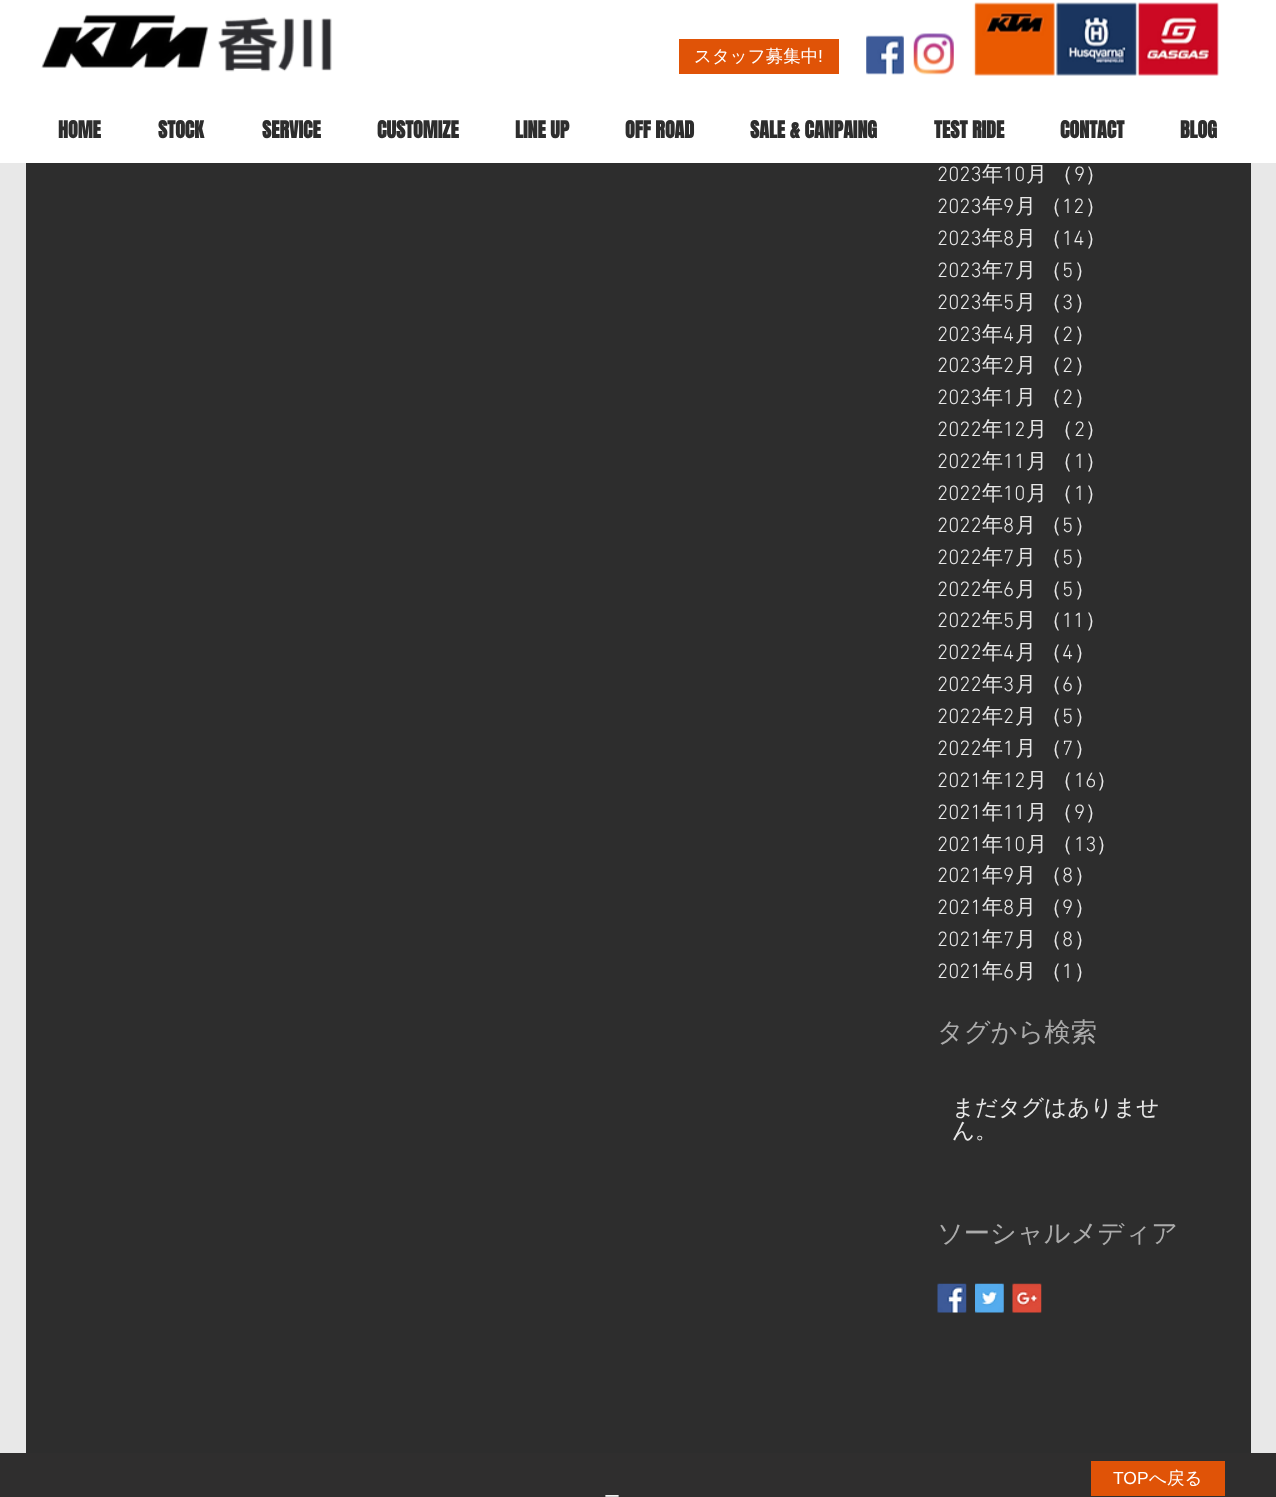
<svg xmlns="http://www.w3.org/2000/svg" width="1276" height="1497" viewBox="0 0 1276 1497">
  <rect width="100%" height="100%" fill="#e8e8e8"/>
  <rect x="0" y="0" width="1276" height="163" fill="#ffffff"/>
  <image x="41" y="14" width="291" height="58" href="img1.png"/>
  <rect x="679" y="39" width="160" height="35" fill="#e05307"/>
  <text x="694" y="62" font-family="WenQuanYi Zen Hei" font-size="17.5" font-weight="500" fill="#ffffff">スタッフ募集中</text>
  <text x="818" y="62" font-family="Liberation Sans" font-size="17.5" fill="#ffffff">!</text>
  <image x="866" y="35" width="38" height="40" href="img2.png"/>
  <image x="913" y="33" width="41" height="42" href="img3.png"/>
  <image x="973" y="2" width="246" height="74" href="img4.png"/>
  <text x="58" y="138" font-family="Anton" font-size="20" font-weight="bold" fill="#2d2d2d">HOME</text>
  <text x="158" y="138" font-family="Anton" font-size="20" font-weight="bold" fill="#2d2d2d">STOCK</text>
  <text x="262" y="138" font-family="Anton" font-size="20" font-weight="bold" fill="#2d2d2d">SERVICE</text>
  <text x="377" y="138" font-family="Anton" font-size="20" font-weight="bold" fill="#2d2d2d">CUSTOMIZE</text>
  <text x="515" y="138" font-family="Anton" font-size="20" font-weight="bold" fill="#2d2d2d">LINE UP</text>
  <text x="625" y="138" font-family="Anton" font-size="20" font-weight="bold" fill="#2d2d2d">OFF ROAD</text>
  <text x="750" y="138" font-family="Anton" font-size="20" font-weight="bold" fill="#2d2d2d">SALE &amp; CANPAING</text>
  <text x="934" y="138" font-family="Anton" font-size="20" font-weight="bold" fill="#2d2d2d">TEST RIDE</text>
  <text x="1060" y="138" font-family="Anton" font-size="20" font-weight="bold" fill="#2d2d2d">CONTACT</text>
  <text x="1180" y="138" font-family="Anton" font-size="20" font-weight="bold" fill="#2d2d2d">BLOG</text>
  <rect x="26" y="163" width="1225" height="1290" fill="#2d2d2d"/>
  <text x="937" y="181" font-family="'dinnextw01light'" font-size="21" font-weight="300" fill="#e8e8e8">2023</text>
  <text x="982" y="181" font-family="WenQuanYi Zen Hei" font-size="21" font-weight="500" fill="#e8e8e8">年</text>
  <text x="1003" y="181" font-family="'dinnextw01light'" font-size="21" font-weight="300" fill="#e8e8e8">10</text>
  <text x="1026" y="181" font-family="WenQuanYi Zen Hei" font-size="21" font-weight="500" fill="#e8e8e8">月</text>
  <text x="1052" y="181" font-family="WenQuanYi Zen Hei" font-size="21" font-weight="500" fill="#e8e8e8">（</text>
  <text x="1074" y="181" font-family="'dinnextw01light'" font-size="21" font-weight="300" fill="#e8e8e8">9</text>
  <text x="1085" y="181" font-family="WenQuanYi Zen Hei" font-size="21" font-weight="500" fill="#e8e8e8">）</text>
  <text x="937" y="213" font-family="'dinnextw01light'" font-size="21" font-weight="300" fill="#e8e8e8">2023</text>
  <text x="982" y="213" font-family="WenQuanYi Zen Hei" font-size="21" font-weight="500" fill="#e8e8e8">年</text>
  <text x="1003" y="213" font-family="'dinnextw01light'" font-size="21" font-weight="300" fill="#e8e8e8">9</text>
  <text x="1015" y="213" font-family="WenQuanYi Zen Hei" font-size="21" font-weight="500" fill="#e8e8e8">月</text>
  <text x="1041" y="213" font-family="WenQuanYi Zen Hei" font-size="21" font-weight="500" fill="#e8e8e8">（</text>
  <text x="1062" y="213" font-family="'dinnextw01light'" font-size="21" font-weight="300" fill="#e8e8e8">12</text>
  <text x="1085" y="213" font-family="WenQuanYi Zen Hei" font-size="21" font-weight="500" fill="#e8e8e8">）</text>
  <text x="937" y="245" font-family="'dinnextw01light'" font-size="21" font-weight="300" fill="#e8e8e8">2023</text>
  <text x="982" y="245" font-family="WenQuanYi Zen Hei" font-size="21" font-weight="500" fill="#e8e8e8">年</text>
  <text x="1003" y="245" font-family="'dinnextw01light'" font-size="21" font-weight="300" fill="#e8e8e8">8</text>
  <text x="1015" y="245" font-family="WenQuanYi Zen Hei" font-size="21" font-weight="500" fill="#e8e8e8">月</text>
  <text x="1041" y="245" font-family="WenQuanYi Zen Hei" font-size="21" font-weight="500" fill="#e8e8e8">（</text>
  <text x="1062" y="245" font-family="'dinnextw01light'" font-size="21" font-weight="300" fill="#e8e8e8">14</text>
  <text x="1085" y="245" font-family="WenQuanYi Zen Hei" font-size="21" font-weight="500" fill="#e8e8e8">）</text>
  <text x="937" y="277" font-family="'dinnextw01light'" font-size="21" font-weight="300" fill="#e8e8e8">2023</text>
  <text x="982" y="277" font-family="WenQuanYi Zen Hei" font-size="21" font-weight="500" fill="#e8e8e8">年</text>
  <text x="1003" y="277" font-family="'dinnextw01light'" font-size="21" font-weight="300" fill="#e8e8e8">7</text>
  <text x="1015" y="277" font-family="WenQuanYi Zen Hei" font-size="21" font-weight="500" fill="#e8e8e8">月</text>
  <text x="1041" y="277" font-family="WenQuanYi Zen Hei" font-size="21" font-weight="500" fill="#e8e8e8">（</text>
  <text x="1062" y="277" font-family="'dinnextw01light'" font-size="21" font-weight="300" fill="#e8e8e8">5</text>
  <text x="1074" y="277" font-family="WenQuanYi Zen Hei" font-size="21" font-weight="500" fill="#e8e8e8">）</text>
  <text x="937" y="309" font-family="'dinnextw01light'" font-size="21" font-weight="300" fill="#e8e8e8">2023</text>
  <text x="982" y="309" font-family="WenQuanYi Zen Hei" font-size="21" font-weight="500" fill="#e8e8e8">年</text>
  <text x="1003" y="309" font-family="'dinnextw01light'" font-size="21" font-weight="300" fill="#e8e8e8">5</text>
  <text x="1015" y="309" font-family="WenQuanYi Zen Hei" font-size="21" font-weight="500" fill="#e8e8e8">月</text>
  <text x="1041" y="309" font-family="WenQuanYi Zen Hei" font-size="21" font-weight="500" fill="#e8e8e8">（</text>
  <text x="1062" y="309" font-family="'dinnextw01light'" font-size="21" font-weight="300" fill="#e8e8e8">3</text>
  <text x="1074" y="309" font-family="WenQuanYi Zen Hei" font-size="21" font-weight="500" fill="#e8e8e8">）</text>
  <text x="937" y="341" font-family="'dinnextw01light'" font-size="21" font-weight="300" fill="#e8e8e8">2023</text>
  <text x="982" y="341" font-family="WenQuanYi Zen Hei" font-size="21" font-weight="500" fill="#e8e8e8">年</text>
  <text x="1003" y="341" font-family="'dinnextw01light'" font-size="21" font-weight="300" fill="#e8e8e8">4</text>
  <text x="1015" y="341" font-family="WenQuanYi Zen Hei" font-size="21" font-weight="500" fill="#e8e8e8">月</text>
  <text x="1041" y="341" font-family="WenQuanYi Zen Hei" font-size="21" font-weight="500" fill="#e8e8e8">（</text>
  <text x="1062" y="341" font-family="'dinnextw01light'" font-size="21" font-weight="300" fill="#e8e8e8">2</text>
  <text x="1074" y="341" font-family="WenQuanYi Zen Hei" font-size="21" font-weight="500" fill="#e8e8e8">）</text>
  <text x="937" y="372" font-family="'dinnextw01light'" font-size="21" font-weight="300" fill="#e8e8e8">2023</text>
  <text x="982" y="372" font-family="WenQuanYi Zen Hei" font-size="21" font-weight="500" fill="#e8e8e8">年</text>
  <text x="1003" y="372" font-family="'dinnextw01light'" font-size="21" font-weight="300" fill="#e8e8e8">2</text>
  <text x="1015" y="372" font-family="WenQuanYi Zen Hei" font-size="21" font-weight="500" fill="#e8e8e8">月</text>
  <text x="1041" y="372" font-family="WenQuanYi Zen Hei" font-size="21" font-weight="500" fill="#e8e8e8">（</text>
  <text x="1062" y="372" font-family="'dinnextw01light'" font-size="21" font-weight="300" fill="#e8e8e8">2</text>
  <text x="1074" y="372" font-family="WenQuanYi Zen Hei" font-size="21" font-weight="500" fill="#e8e8e8">）</text>
  <text x="937" y="404" font-family="'dinnextw01light'" font-size="21" font-weight="300" fill="#e8e8e8">2023</text>
  <text x="982" y="404" font-family="WenQuanYi Zen Hei" font-size="21" font-weight="500" fill="#e8e8e8">年</text>
  <text x="1003" y="404" font-family="'dinnextw01light'" font-size="21" font-weight="300" fill="#e8e8e8">1</text>
  <text x="1015" y="404" font-family="WenQuanYi Zen Hei" font-size="21" font-weight="500" fill="#e8e8e8">月</text>
  <text x="1041" y="404" font-family="WenQuanYi Zen Hei" font-size="21" font-weight="500" fill="#e8e8e8">（</text>
  <text x="1062" y="404" font-family="'dinnextw01light'" font-size="21" font-weight="300" fill="#e8e8e8">2</text>
  <text x="1074" y="404" font-family="WenQuanYi Zen Hei" font-size="21" font-weight="500" fill="#e8e8e8">）</text>
  <text x="937" y="436" font-family="'dinnextw01light'" font-size="21" font-weight="300" fill="#e8e8e8">2022</text>
  <text x="982" y="436" font-family="WenQuanYi Zen Hei" font-size="21" font-weight="500" fill="#e8e8e8">年</text>
  <text x="1003" y="436" font-family="'dinnextw01light'" font-size="21" font-weight="300" fill="#e8e8e8">12</text>
  <text x="1026" y="436" font-family="WenQuanYi Zen Hei" font-size="21" font-weight="500" fill="#e8e8e8">月</text>
  <text x="1052" y="436" font-family="WenQuanYi Zen Hei" font-size="21" font-weight="500" fill="#e8e8e8">（</text>
  <text x="1074" y="436" font-family="'dinnextw01light'" font-size="21" font-weight="300" fill="#e8e8e8">2</text>
  <text x="1085" y="436" font-family="WenQuanYi Zen Hei" font-size="21" font-weight="500" fill="#e8e8e8">）</text>
  <text x="937" y="468" font-family="'dinnextw01light'" font-size="21" font-weight="300" fill="#e8e8e8">2022</text>
  <text x="982" y="468" font-family="WenQuanYi Zen Hei" font-size="21" font-weight="500" fill="#e8e8e8">年</text>
  <text x="1003" y="468" font-family="'dinnextw01light'" font-size="21" font-weight="300" fill="#e8e8e8">11</text>
  <text x="1026" y="468" font-family="WenQuanYi Zen Hei" font-size="21" font-weight="500" fill="#e8e8e8">月</text>
  <text x="1052" y="468" font-family="WenQuanYi Zen Hei" font-size="21" font-weight="500" fill="#e8e8e8">（</text>
  <text x="1074" y="468" font-family="'dinnextw01light'" font-size="21" font-weight="300" fill="#e8e8e8">1</text>
  <text x="1085" y="468" font-family="WenQuanYi Zen Hei" font-size="21" font-weight="500" fill="#e8e8e8">）</text>
  <text x="937" y="500" font-family="'dinnextw01light'" font-size="21" font-weight="300" fill="#e8e8e8">2022</text>
  <text x="982" y="500" font-family="WenQuanYi Zen Hei" font-size="21" font-weight="500" fill="#e8e8e8">年</text>
  <text x="1003" y="500" font-family="'dinnextw01light'" font-size="21" font-weight="300" fill="#e8e8e8">10</text>
  <text x="1026" y="500" font-family="WenQuanYi Zen Hei" font-size="21" font-weight="500" fill="#e8e8e8">月</text>
  <text x="1052" y="500" font-family="WenQuanYi Zen Hei" font-size="21" font-weight="500" fill="#e8e8e8">（</text>
  <text x="1074" y="500" font-family="'dinnextw01light'" font-size="21" font-weight="300" fill="#e8e8e8">1</text>
  <text x="1085" y="500" font-family="WenQuanYi Zen Hei" font-size="21" font-weight="500" fill="#e8e8e8">）</text>
  <text x="937" y="532" font-family="'dinnextw01light'" font-size="21" font-weight="300" fill="#e8e8e8">2022</text>
  <text x="982" y="532" font-family="WenQuanYi Zen Hei" font-size="21" font-weight="500" fill="#e8e8e8">年</text>
  <text x="1003" y="532" font-family="'dinnextw01light'" font-size="21" font-weight="300" fill="#e8e8e8">8</text>
  <text x="1015" y="532" font-family="WenQuanYi Zen Hei" font-size="21" font-weight="500" fill="#e8e8e8">月</text>
  <text x="1041" y="532" font-family="WenQuanYi Zen Hei" font-size="21" font-weight="500" fill="#e8e8e8">（</text>
  <text x="1062" y="532" font-family="'dinnextw01light'" font-size="21" font-weight="300" fill="#e8e8e8">5</text>
  <text x="1074" y="532" font-family="WenQuanYi Zen Hei" font-size="21" font-weight="500" fill="#e8e8e8">）</text>
  <text x="937" y="564" font-family="'dinnextw01light'" font-size="21" font-weight="300" fill="#e8e8e8">2022</text>
  <text x="982" y="564" font-family="WenQuanYi Zen Hei" font-size="21" font-weight="500" fill="#e8e8e8">年</text>
  <text x="1003" y="564" font-family="'dinnextw01light'" font-size="21" font-weight="300" fill="#e8e8e8">7</text>
  <text x="1015" y="564" font-family="WenQuanYi Zen Hei" font-size="21" font-weight="500" fill="#e8e8e8">月</text>
  <text x="1041" y="564" font-family="WenQuanYi Zen Hei" font-size="21" font-weight="500" fill="#e8e8e8">（</text>
  <text x="1062" y="564" font-family="'dinnextw01light'" font-size="21" font-weight="300" fill="#e8e8e8">5</text>
  <text x="1074" y="564" font-family="WenQuanYi Zen Hei" font-size="21" font-weight="500" fill="#e8e8e8">）</text>
  <text x="937" y="596" font-family="'dinnextw01light'" font-size="21" font-weight="300" fill="#e8e8e8">2022</text>
  <text x="982" y="596" font-family="WenQuanYi Zen Hei" font-size="21" font-weight="500" fill="#e8e8e8">年</text>
  <text x="1003" y="596" font-family="'dinnextw01light'" font-size="21" font-weight="300" fill="#e8e8e8">6</text>
  <text x="1015" y="596" font-family="WenQuanYi Zen Hei" font-size="21" font-weight="500" fill="#e8e8e8">月</text>
  <text x="1041" y="596" font-family="WenQuanYi Zen Hei" font-size="21" font-weight="500" fill="#e8e8e8">（</text>
  <text x="1062" y="596" font-family="'dinnextw01light'" font-size="21" font-weight="300" fill="#e8e8e8">5</text>
  <text x="1074" y="596" font-family="WenQuanYi Zen Hei" font-size="21" font-weight="500" fill="#e8e8e8">）</text>
  <text x="937" y="627" font-family="'dinnextw01light'" font-size="21" font-weight="300" fill="#e8e8e8">2022</text>
  <text x="982" y="627" font-family="WenQuanYi Zen Hei" font-size="21" font-weight="500" fill="#e8e8e8">年</text>
  <text x="1003" y="627" font-family="'dinnextw01light'" font-size="21" font-weight="300" fill="#e8e8e8">5</text>
  <text x="1015" y="627" font-family="WenQuanYi Zen Hei" font-size="21" font-weight="500" fill="#e8e8e8">月</text>
  <text x="1041" y="627" font-family="WenQuanYi Zen Hei" font-size="21" font-weight="500" fill="#e8e8e8">（</text>
  <text x="1062" y="627" font-family="'dinnextw01light'" font-size="21" font-weight="300" fill="#e8e8e8">11</text>
  <text x="1085" y="627" font-family="WenQuanYi Zen Hei" font-size="21" font-weight="500" fill="#e8e8e8">）</text>
  <text x="937" y="659" font-family="'dinnextw01light'" font-size="21" font-weight="300" fill="#e8e8e8">2022</text>
  <text x="982" y="659" font-family="WenQuanYi Zen Hei" font-size="21" font-weight="500" fill="#e8e8e8">年</text>
  <text x="1003" y="659" font-family="'dinnextw01light'" font-size="21" font-weight="300" fill="#e8e8e8">4</text>
  <text x="1015" y="659" font-family="WenQuanYi Zen Hei" font-size="21" font-weight="500" fill="#e8e8e8">月</text>
  <text x="1041" y="659" font-family="WenQuanYi Zen Hei" font-size="21" font-weight="500" fill="#e8e8e8">（</text>
  <text x="1062" y="659" font-family="'dinnextw01light'" font-size="21" font-weight="300" fill="#e8e8e8">4</text>
  <text x="1074" y="659" font-family="WenQuanYi Zen Hei" font-size="21" font-weight="500" fill="#e8e8e8">）</text>
  <text x="937" y="691" font-family="'dinnextw01light'" font-size="21" font-weight="300" fill="#e8e8e8">2022</text>
  <text x="982" y="691" font-family="WenQuanYi Zen Hei" font-size="21" font-weight="500" fill="#e8e8e8">年</text>
  <text x="1003" y="691" font-family="'dinnextw01light'" font-size="21" font-weight="300" fill="#e8e8e8">3</text>
  <text x="1015" y="691" font-family="WenQuanYi Zen Hei" font-size="21" font-weight="500" fill="#e8e8e8">月</text>
  <text x="1041" y="691" font-family="WenQuanYi Zen Hei" font-size="21" font-weight="500" fill="#e8e8e8">（</text>
  <text x="1062" y="691" font-family="'dinnextw01light'" font-size="21" font-weight="300" fill="#e8e8e8">6</text>
  <text x="1074" y="691" font-family="WenQuanYi Zen Hei" font-size="21" font-weight="500" fill="#e8e8e8">）</text>
  <text x="937" y="723" font-family="'dinnextw01light'" font-size="21" font-weight="300" fill="#e8e8e8">2022</text>
  <text x="982" y="723" font-family="WenQuanYi Zen Hei" font-size="21" font-weight="500" fill="#e8e8e8">年</text>
  <text x="1003" y="723" font-family="'dinnextw01light'" font-size="21" font-weight="300" fill="#e8e8e8">2</text>
  <text x="1015" y="723" font-family="WenQuanYi Zen Hei" font-size="21" font-weight="500" fill="#e8e8e8">月</text>
  <text x="1041" y="723" font-family="WenQuanYi Zen Hei" font-size="21" font-weight="500" fill="#e8e8e8">（</text>
  <text x="1062" y="723" font-family="'dinnextw01light'" font-size="21" font-weight="300" fill="#e8e8e8">5</text>
  <text x="1074" y="723" font-family="WenQuanYi Zen Hei" font-size="21" font-weight="500" fill="#e8e8e8">）</text>
  <text x="937" y="755" font-family="'dinnextw01light'" font-size="21" font-weight="300" fill="#e8e8e8">2022</text>
  <text x="982" y="755" font-family="WenQuanYi Zen Hei" font-size="21" font-weight="500" fill="#e8e8e8">年</text>
  <text x="1003" y="755" font-family="'dinnextw01light'" font-size="21" font-weight="300" fill="#e8e8e8">1</text>
  <text x="1015" y="755" font-family="WenQuanYi Zen Hei" font-size="21" font-weight="500" fill="#e8e8e8">月</text>
  <text x="1041" y="755" font-family="WenQuanYi Zen Hei" font-size="21" font-weight="500" fill="#e8e8e8">（</text>
  <text x="1062" y="755" font-family="'dinnextw01light'" font-size="21" font-weight="300" fill="#e8e8e8">7</text>
  <text x="1074" y="755" font-family="WenQuanYi Zen Hei" font-size="21" font-weight="500" fill="#e8e8e8">）</text>
  <text x="937" y="787" font-family="'dinnextw01light'" font-size="21" font-weight="300" fill="#e8e8e8">2021</text>
  <text x="982" y="787" font-family="WenQuanYi Zen Hei" font-size="21" font-weight="500" fill="#e8e8e8">年</text>
  <text x="1003" y="787" font-family="'dinnextw01light'" font-size="21" font-weight="300" fill="#e8e8e8">12</text>
  <text x="1026" y="787" font-family="WenQuanYi Zen Hei" font-size="21" font-weight="500" fill="#e8e8e8">月</text>
  <text x="1052" y="787" font-family="WenQuanYi Zen Hei" font-size="21" font-weight="500" fill="#e8e8e8">（</text>
  <text x="1074" y="787" font-family="'dinnextw01light'" font-size="21" font-weight="300" fill="#e8e8e8">16</text>
  <text x="1096" y="787" font-family="WenQuanYi Zen Hei" font-size="21" font-weight="500" fill="#e8e8e8">）</text>
  <text x="937" y="819" font-family="'dinnextw01light'" font-size="21" font-weight="300" fill="#e8e8e8">2021</text>
  <text x="982" y="819" font-family="WenQuanYi Zen Hei" font-size="21" font-weight="500" fill="#e8e8e8">年</text>
  <text x="1003" y="819" font-family="'dinnextw01light'" font-size="21" font-weight="300" fill="#e8e8e8">11</text>
  <text x="1026" y="819" font-family="WenQuanYi Zen Hei" font-size="21" font-weight="500" fill="#e8e8e8">月</text>
  <text x="1052" y="819" font-family="WenQuanYi Zen Hei" font-size="21" font-weight="500" fill="#e8e8e8">（</text>
  <text x="1074" y="819" font-family="'dinnextw01light'" font-size="21" font-weight="300" fill="#e8e8e8">9</text>
  <text x="1085" y="819" font-family="WenQuanYi Zen Hei" font-size="21" font-weight="500" fill="#e8e8e8">）</text>
  <text x="937" y="851" font-family="'dinnextw01light'" font-size="21" font-weight="300" fill="#e8e8e8">2021</text>
  <text x="982" y="851" font-family="WenQuanYi Zen Hei" font-size="21" font-weight="500" fill="#e8e8e8">年</text>
  <text x="1003" y="851" font-family="'dinnextw01light'" font-size="21" font-weight="300" fill="#e8e8e8">10</text>
  <text x="1026" y="851" font-family="WenQuanYi Zen Hei" font-size="21" font-weight="500" fill="#e8e8e8">月</text>
  <text x="1052" y="851" font-family="WenQuanYi Zen Hei" font-size="21" font-weight="500" fill="#e8e8e8">（</text>
  <text x="1074" y="851" font-family="'dinnextw01light'" font-size="21" font-weight="300" fill="#e8e8e8">13</text>
  <text x="1096" y="851" font-family="WenQuanYi Zen Hei" font-size="21" font-weight="500" fill="#e8e8e8">）</text>
  <text x="937" y="882" font-family="'dinnextw01light'" font-size="21" font-weight="300" fill="#e8e8e8">2021</text>
  <text x="982" y="882" font-family="WenQuanYi Zen Hei" font-size="21" font-weight="500" fill="#e8e8e8">年</text>
  <text x="1003" y="882" font-family="'dinnextw01light'" font-size="21" font-weight="300" fill="#e8e8e8">9</text>
  <text x="1015" y="882" font-family="WenQuanYi Zen Hei" font-size="21" font-weight="500" fill="#e8e8e8">月</text>
  <text x="1041" y="882" font-family="WenQuanYi Zen Hei" font-size="21" font-weight="500" fill="#e8e8e8">（</text>
  <text x="1062" y="882" font-family="'dinnextw01light'" font-size="21" font-weight="300" fill="#e8e8e8">8</text>
  <text x="1074" y="882" font-family="WenQuanYi Zen Hei" font-size="21" font-weight="500" fill="#e8e8e8">）</text>
  <text x="937" y="914" font-family="'dinnextw01light'" font-size="21" font-weight="300" fill="#e8e8e8">2021</text>
  <text x="982" y="914" font-family="WenQuanYi Zen Hei" font-size="21" font-weight="500" fill="#e8e8e8">年</text>
  <text x="1003" y="914" font-family="'dinnextw01light'" font-size="21" font-weight="300" fill="#e8e8e8">8</text>
  <text x="1015" y="914" font-family="WenQuanYi Zen Hei" font-size="21" font-weight="500" fill="#e8e8e8">月</text>
  <text x="1041" y="914" font-family="WenQuanYi Zen Hei" font-size="21" font-weight="500" fill="#e8e8e8">（</text>
  <text x="1062" y="914" font-family="'dinnextw01light'" font-size="21" font-weight="300" fill="#e8e8e8">9</text>
  <text x="1074" y="914" font-family="WenQuanYi Zen Hei" font-size="21" font-weight="500" fill="#e8e8e8">）</text>
  <text x="937" y="946" font-family="'dinnextw01light'" font-size="21" font-weight="300" fill="#e8e8e8">2021</text>
  <text x="982" y="946" font-family="WenQuanYi Zen Hei" font-size="21" font-weight="500" fill="#e8e8e8">年</text>
  <text x="1003" y="946" font-family="'dinnextw01light'" font-size="21" font-weight="300" fill="#e8e8e8">7</text>
  <text x="1015" y="946" font-family="WenQuanYi Zen Hei" font-size="21" font-weight="500" fill="#e8e8e8">月</text>
  <text x="1041" y="946" font-family="WenQuanYi Zen Hei" font-size="21" font-weight="500" fill="#e8e8e8">（</text>
  <text x="1062" y="946" font-family="'dinnextw01light'" font-size="21" font-weight="300" fill="#e8e8e8">8</text>
  <text x="1074" y="946" font-family="WenQuanYi Zen Hei" font-size="21" font-weight="500" fill="#e8e8e8">）</text>
  <text x="937" y="978" font-family="'dinnextw01light'" font-size="21" font-weight="300" fill="#e8e8e8">2021</text>
  <text x="982" y="978" font-family="WenQuanYi Zen Hei" font-size="21" font-weight="500" fill="#e8e8e8">年</text>
  <text x="1003" y="978" font-family="'dinnextw01light'" font-size="21" font-weight="300" fill="#e8e8e8">6</text>
  <text x="1015" y="978" font-family="WenQuanYi Zen Hei" font-size="21" font-weight="500" fill="#e8e8e8">月</text>
  <text x="1041" y="978" font-family="WenQuanYi Zen Hei" font-size="21" font-weight="500" fill="#e8e8e8">（</text>
  <text x="1062" y="978" font-family="'dinnextw01light'" font-size="21" font-weight="300" fill="#e8e8e8">1</text>
  <text x="1074" y="978" font-family="WenQuanYi Zen Hei" font-size="21" font-weight="500" fill="#e8e8e8">）</text>
  <text x="937" y="1041" font-family="WenQuanYi Zen Hei" font-size="26.25" font-weight="500" fill="#ababab">タグから検索</text>
  <text x="952" y="1115" font-family="WenQuanYi Zen Hei" font-size="22.5" font-weight="500" fill="#e8e8e8">まだタグはありませ</text>
  <text x="952" y="1138" font-family="WenQuanYi Zen Hei" font-size="22.5" font-weight="500" fill="#e8e8e8">ん。</text>
  <text x="937" y="1242" font-family="WenQuanYi Zen Hei" font-size="26.25" font-weight="500" fill="#ababab">ソーシャルメディア</text>
  <image x="937" y="1283" width="30" height="30" href="img5.png"/>
  <image x="975" y="1283" width="29" height="30" href="img6.png"/>
  <image x="1012" y="1283" width="30" height="30" href="img7.png"/>
  <rect x="0" y="1453" width="1276" height="44" fill="#2f2e2e"/>
  <rect x="1091" y="1461" width="134" height="35" fill="#e05307"/>
  <text x="1113" y="1484" font-family="Liberation Sans" font-size="17.5" fill="#ffffff">TOP</text>
  <text x="1149" y="1484" font-family="WenQuanYi Zen Hei" font-size="17.5" font-weight="500" fill="#ffffff">へ戻る</text>
  <text x="604" y="1502" font-family="WenQuanYi Zen Hei" font-size="16" font-weight="500" fill="#ffffff">ー</text>
</svg>
